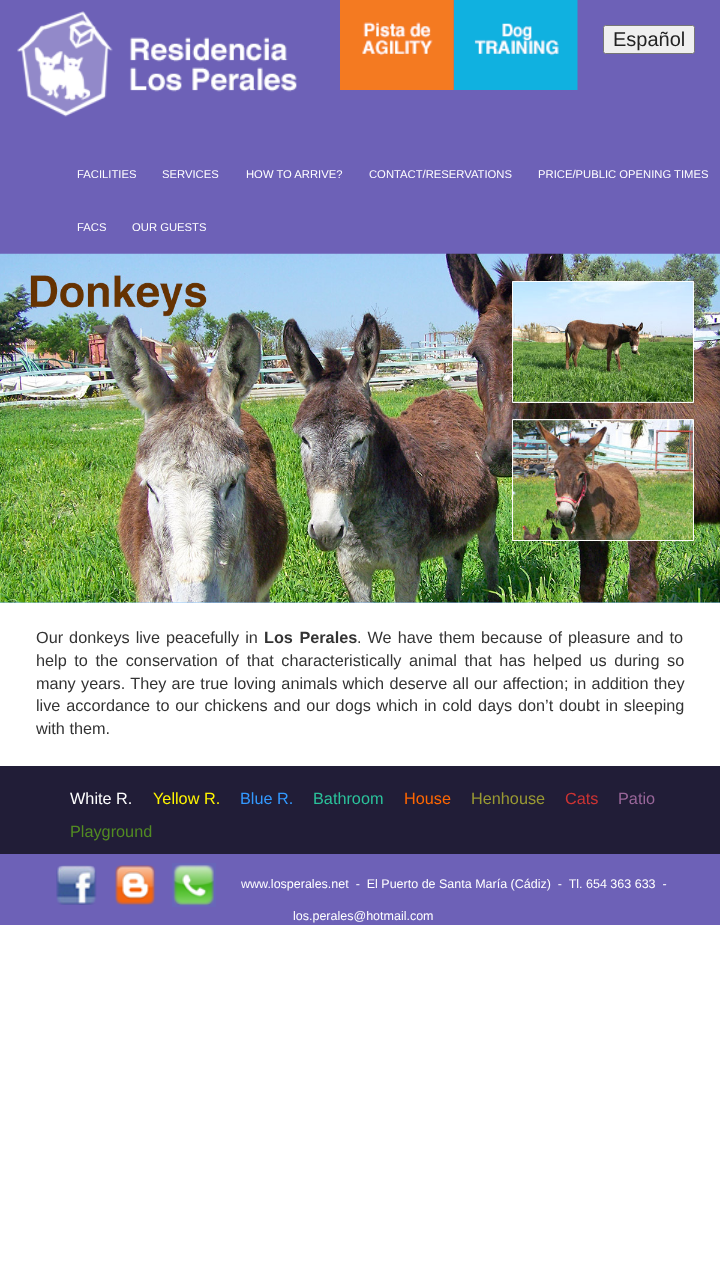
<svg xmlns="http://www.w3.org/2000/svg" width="720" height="1270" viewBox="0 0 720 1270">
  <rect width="100%" height="100%" fill="#ffffff"/>
  <rect x="0" y="0" width="720" height="254" fill="#6d61b7"/>
  <image x="17" y="11" width="280" height="106" href="img1.png"/>
  <image x="453" y="0" width="125" height="90" href="img3.png"/>
  <image x="340" y="0" width="114" height="90" href="img2.png"/>
  <rect x="603.5" y="25.5" width="91" height="28" rx="2" fill="#efefef" stroke="#767676"/>
  <text x="613" y="46" font-family="Liberation Sans" font-size="20" fill="#222222">Español</text>
  <text x="77" y="178" font-family="Liberation Sans" font-size="11.25" fill="#ffffff">FACILITIES</text>
  <text x="162" y="178" font-family="Liberation Sans" font-size="11.25" fill="#ffffff">SERVICES</text>
  <text x="246" y="178" font-family="Liberation Sans" font-size="11.25" fill="#ffffff">HOW TO ARRIVE?</text>
  <text x="369" y="178" font-family="Liberation Sans" font-size="11.25" fill="#ffffff">CONTACT/RESERVATIONS</text>
  <text x="538" y="178" font-family="Liberation Sans" font-size="11.25" fill="#ffffff">PRICE/PUBLIC OPENING TIMES</text>
  <text x="77" y="231" font-family="Liberation Sans" font-size="11.25" fill="#ffffff">FACS</text>
  <text x="132" y="231" font-family="Liberation Sans" font-size="11.25" fill="#ffffff">OUR GUESTS</text>
  <rect x="0" y="602" width="720" height="1" fill="#99ccff"/>
  <image x="0" y="253" width="720" height="350" href="img4.png"/>
  <text x="36" y="643" word-spacing="1.5" font-family="Liberation Sans" font-size="16.25" fill="#333333">Our donkeys live peacefully in</text>
  <text x="264" y="643" word-spacing="2" font-family="Liberation Sans" font-size="16.25" font-weight="bold" fill="#333333">Los Perales</text>
  <text x="357" y="643" word-spacing="1.5" font-family="Liberation Sans" font-size="16.25" fill="#333333">. We have them because of pleasure and to</text>
  <text x="36" y="666" word-spacing="3.1" font-family="Liberation Sans" font-size="16.25" fill="#333333">help to the conservation of that characteristically animal that has helped us during so</text>
  <text x="36" y="689" word-spacing="0.75" font-family="Liberation Sans" font-size="16.25" fill="#333333">many years. They are true loving animals which deserve all our affection; in addition they</text>
  <text x="36" y="711" word-spacing="1.25" font-family="Liberation Sans" font-size="16.25" fill="#333333">live accordance to our chickens and our dogs which in cold days don’t doubt in sleeping</text>
  <text x="36" y="734" font-family="Liberation Sans" font-size="16.25" fill="#333333">with them.</text>
  <rect x="0" y="766" width="720" height="88" fill="#211d37"/>
  <text x="70" y="804" font-family="Liberation Sans" font-size="16.25" fill="#ffffff">White R.</text>
  <text x="153" y="804" font-family="Liberation Sans" font-size="16.25" fill="#fff500">Yellow R.</text>
  <text x="240" y="804" font-family="Liberation Sans" font-size="16.25" fill="#3399ff">Blue R.</text>
  <text x="313" y="804" font-family="Liberation Sans" font-size="16.25" fill="#2bc29b">Bathroom</text>
  <text x="404" y="804" font-family="Liberation Sans" font-size="16.25" fill="#ff6600">House</text>
  <text x="471" y="804" font-family="Liberation Sans" font-size="16.25" fill="#999933">Henhouse</text>
  <text x="565" y="804" font-family="Liberation Sans" font-size="16.25" fill="#cc3333">Cats</text>
  <text x="618" y="804" font-family="Liberation Sans" font-size="16.25" fill="#996699">Patio</text>
  <text x="70" y="837" font-family="Liberation Sans" font-size="16.25" fill="#528b22">Playground</text>
  <rect x="0" y="854" width="720" height="71" fill="#6d61b7"/>
  <image x="56" y="865" width="41" height="40" href="img5.png"/>
  <image x="115" y="865" width="41" height="41" href="img6.png"/>
  <image x="172" y="863" width="44" height="44" href="img7.png"/>
  <text x="241" y="888" font-family="Liberation Sans" font-size="12.5" fill="#ffffff" xml:space="preserve">www.losperales.net  -  El Puerto de Santa María (Cádiz)  -  Tl. 654 363 633  -</text>
  <text x="293" y="920" font-family="Liberation Sans" font-size="12.5" fill="#ffffff">los.perales@hotmail.com</text>
</svg>
